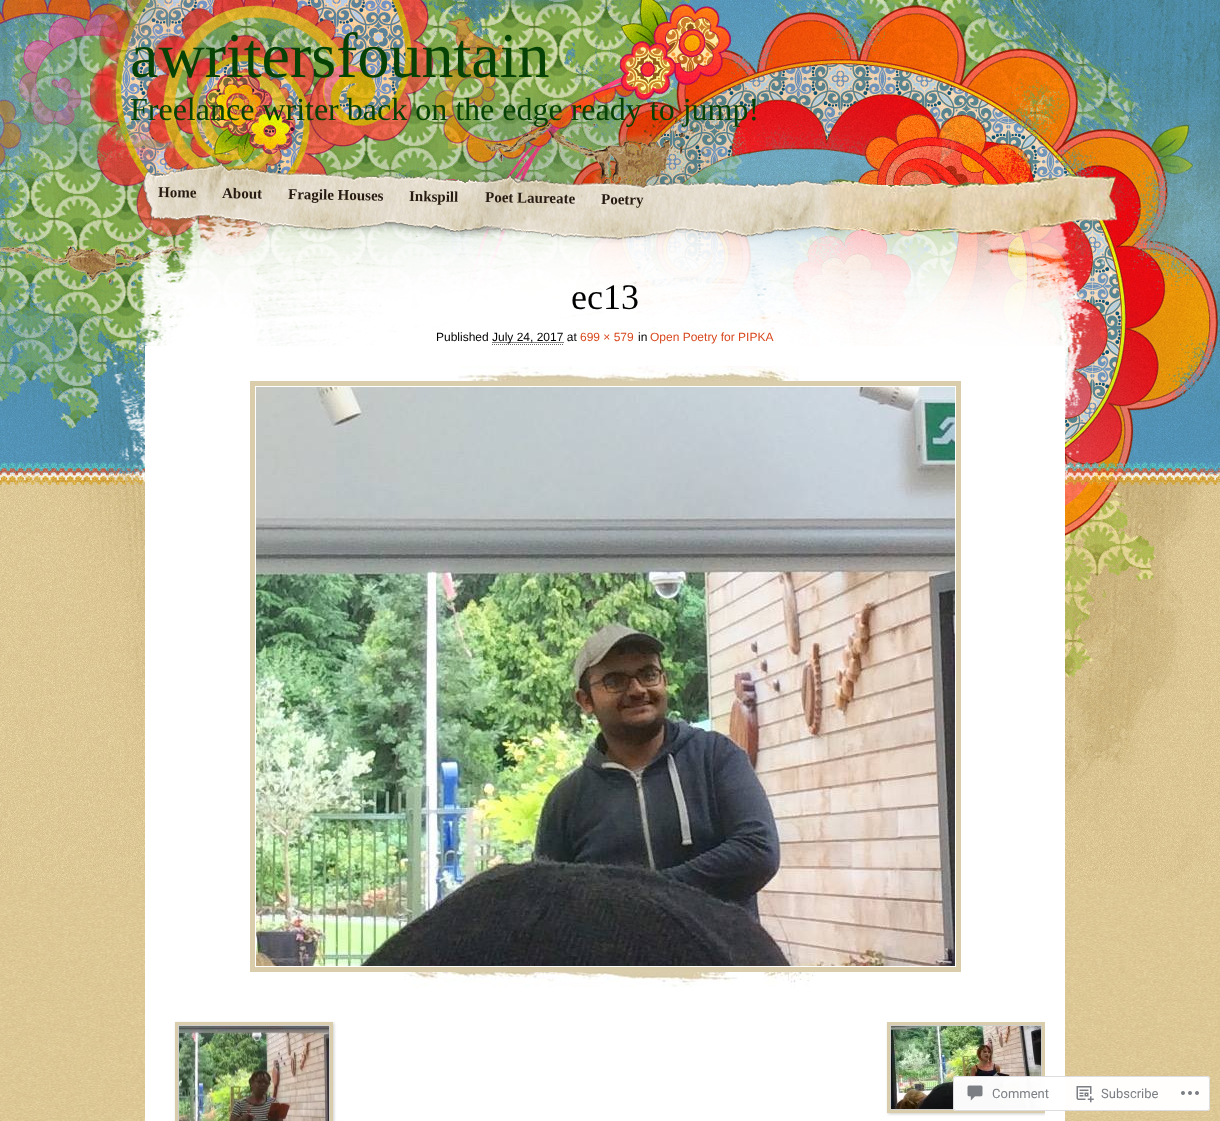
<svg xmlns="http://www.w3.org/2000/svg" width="1220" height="1121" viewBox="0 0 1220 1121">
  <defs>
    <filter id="blur1" x="-50%" y="-200%" width="200%" height="500%"><feGaussianBlur stdDeviation="1.5"/></filter>
    <clipPath id="clip1"><rect x="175" y="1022" width="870" height="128"/></clipPath>
  </defs>
  <rect width="100%" height="100%" fill="#ffffff"/>
  <image x="0" y="883" width="1220" height="238" href="img1.png"/>
  <image x="0" y="0" width="1220" height="883" href="img2.png"/>
  <text x="130" y="77" font-family="Liberation Serif" font-size="64" fill="#064205">awritersfountain</text>
  <text x="130" y="120" font-family="Liberation Serif" font-size="32" fill="#064205">Freelance writer back on the edge ready to jump!</text>
  <image x="106" y="215" width="1016" height="271" href="img4.png"/>
  <image x="141" y="161" width="977" height="82" href="img3.png"/>
  <text x="158" y="197" transform="rotate(1 158 197)" font-family="Liberation Serif" font-size="15" font-weight="bold" fill="#261a11">Home</text>
  <text x="222" y="198" transform="rotate(1 222 198)" font-family="Liberation Serif" font-size="15" font-weight="bold" fill="#261a11">About</text>
  <text x="288" y="199" transform="rotate(1 288 199)" font-family="Liberation Serif" font-size="15" font-weight="bold" fill="#261a11">Fragile Houses</text>
  <text x="409" y="201" transform="rotate(1 409 201)" font-family="Liberation Serif" font-size="15" font-weight="bold" fill="#261a11">Inkspill</text>
  <text x="485" y="202" transform="rotate(1 485 202)" font-family="Liberation Serif" font-size="15" font-weight="bold" fill="#261a11">Poet Laureate</text>
  <text x="601" y="204" transform="rotate(1 601 204)" font-family="Liberation Serif" font-size="15" font-weight="bold" fill="#261a11">Poetry</text>
  <rect x="145" y="346" width="920" height="775" fill="#ffffff"/>
  <text x="571" y="309" font-family="Liberation Serif" font-size="36" fill="#000000">ec13</text>
  <text x="436" y="341" font-family="Liberation Sans" font-size="12" fill="#000000">Published</text>
  <path d="M492.5 342.5H564" fill="none" stroke="#000000" stroke-dasharray="1 1"/>
  <text x="492" y="341" font-family="Liberation Sans" font-size="12" fill="#000000">July 24, 2017 at</text>
  <path d="M492 344.5H564" fill="none" stroke="#666666" stroke-dasharray="1 1"/>
  <text x="580" y="341" font-family="Liberation Sans" font-size="12" fill="#d8471d">699 × 579</text>
  <text x="638" y="341" font-family="Liberation Sans" font-size="12" fill="#000000">in</text>
  <text x="650" y="341" font-family="Liberation Sans" font-size="12" fill="#d8471d">Open Poetry for PIPKA</text>
  <image x="404" y="972" width="411" height="15" href="img5.png"/>
  <image x="458" y="366" width="341" height="15" href="img6.png"/>
  <rect x="252.5" y="383.5" width="706" height="586" fill="none" stroke="#dacdab" stroke-width="5"/>
  <image x="256" y="387" width="699" height="579" href="img7.png"/>
  <rect x="176" y="1023" width="158" height="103" fill="#cccccc" filter="url(#blur1)"/>
  <rect x="176.5" y="1023.5" width="155" height="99" fill="none" stroke="#dacdab" stroke-width="3"/>
  <image x="179" y="1026" width="150" height="95" href="img8.png"/>
  <g clip-path="url(#clip1)">
    <rect x="888" y="1023" width="158" height="91" fill="#cccccc" filter="url(#blur1)"/>
  </g>
  <rect x="888.5" y="1023.5" width="155" height="88" fill="none" stroke="#dacdab" stroke-width="3"/>
  <image x="891" y="1026" width="150" height="83" href="img9.png"/>
  <rect x="953" y="1076" width="257" height="35" rx="3" fill="#ffffff" fill-opacity="0.98"/>
  <rect x="953.5" y="1076.5" width="256" height="34" rx="2.5" fill="none" stroke="#dcdcde" stroke-opacity="0.98"/>
  <image x="967" y="1085" width="16" height="16" href="img10.png"/>
  <text x="992" y="1098" font-family="Roboto" font-size="13" fill="#7b7f84">Comment</text>
  <image x="1076" y="1086" width="18" height="17" href="img11.png"/>
  <text x="1101" y="1098" font-family="Roboto" font-size="13" fill="#7b7f84">Subscribe</text>
  <image x="1181" y="1091" width="18" height="4" href="img12.png"/>
</svg>
